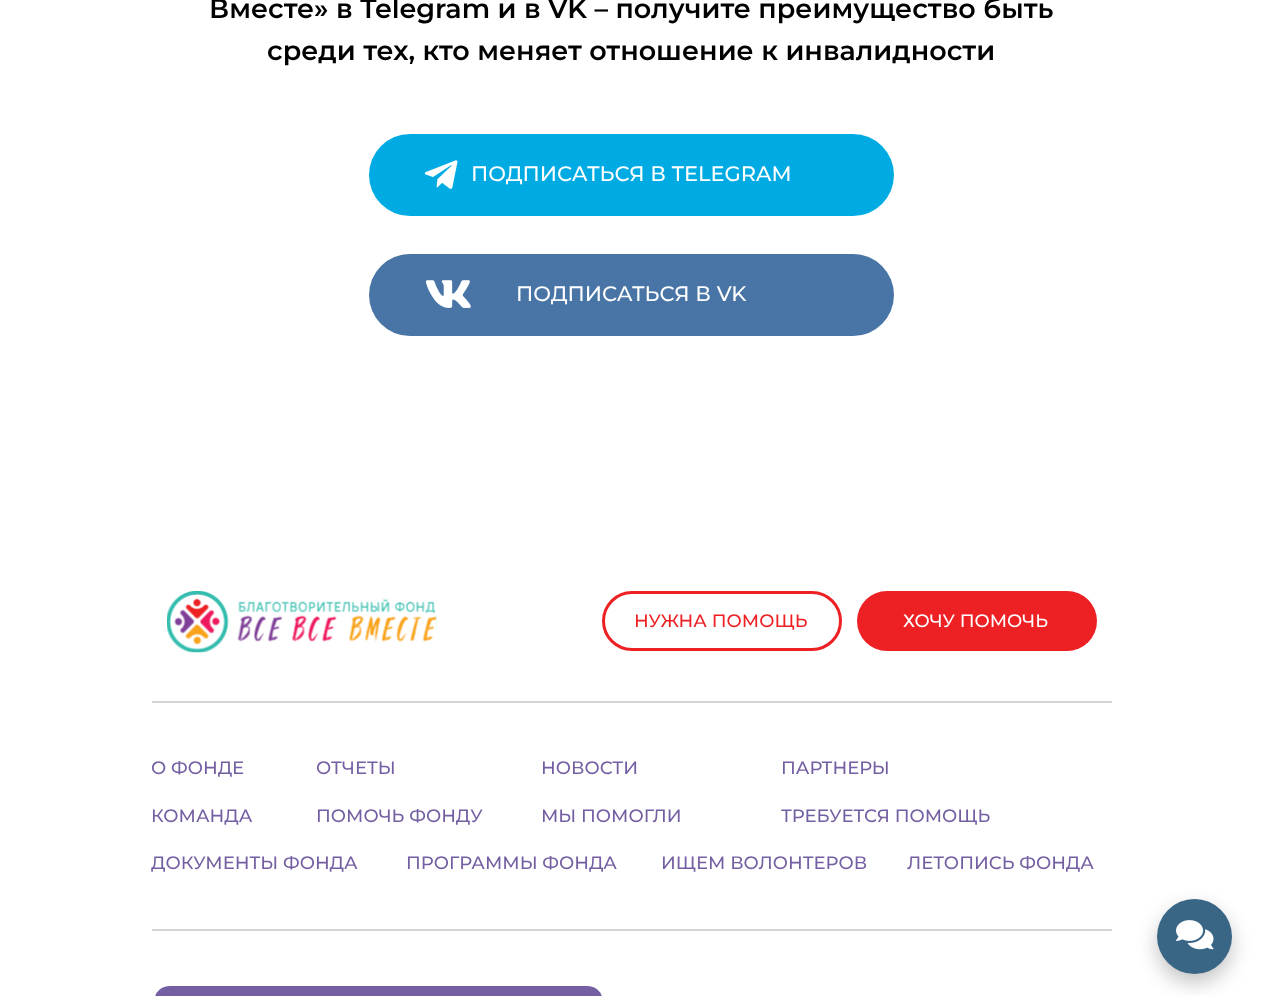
<svg xmlns="http://www.w3.org/2000/svg" width="1261" height="996" viewBox="0 0 1261 996">
  <defs>
    <filter id="blur1" x="-50%" y="-200%" width="200%" height="500%"><feGaussianBlur stdDeviation="10"/></filter>
  </defs>
  <rect width="100%" height="100%" fill="#ffffff"/>
  <text x="209" y="18" font-family="Montserrat" font-size="27" font-weight="600" fill="#000000">Вместе» в Telegram и в VK – получите преимущество быть</text>
  <text x="267" y="60" font-family="Montserrat" font-size="27" font-weight="600" fill="#000000">среди тех, кто меняет отношение к инвалидности</text>
  <rect x="369" y="134" width="525" height="82" rx="41" fill="#00abe3"/>
  <image x="425" y="160" width="33" height="29" href="img1.png"/>
  <text x="471" y="181" font-family="Montserrat" font-size="21" font-weight="500" fill="#ffffff">ПОДПИСАТЬСЯ В TELEGRAM</text>
  <rect x="369" y="254" width="525" height="82" rx="41" fill="#4975a6"/>
  <image x="425" y="280" width="46" height="28" href="img2.png"/>
  <text x="516" y="301" font-family="Montserrat" font-size="21" font-weight="500" fill="#ffffff">ПОДПИСАТЬСЯ В VK</text>
  <image x="167" y="591" width="270" height="62" href="img3.png"/>
  <rect x="603.5" y="592.5" width="237" height="57" rx="28.5" fill="none" stroke="#ed2023" stroke-width="3"/>
  <text x="634" y="627" font-family="Montserrat" font-size="18" font-weight="500" fill="#ed2023">НУЖНА ПОМОЩЬ</text>
  <rect x="857" y="591" width="240" height="60" rx="30" fill="#ed2023"/>
  <text x="903" y="627" font-family="Montserrat" font-size="18" font-weight="500" fill="#ffffff">ХОЧУ ПОМОЧЬ</text>
  <rect x="152" y="701" width="960" height="2" fill="#d5d5d5"/>
  <text x="151" y="774" font-family="Montserrat" font-size="18" font-weight="500" fill="#755fa3">О ФОНДЕ</text>
  <text x="316" y="774" font-family="Montserrat" font-size="18" font-weight="500" fill="#755fa3">ОТЧЕТЫ</text>
  <text x="541" y="774" font-family="Montserrat" font-size="18" font-weight="500" fill="#755fa3">НОВОСТИ</text>
  <text x="781" y="774" font-family="Montserrat" font-size="18" font-weight="500" fill="#755fa3">ПАРТНЕРЫ</text>
  <text x="151" y="822" font-family="Montserrat" font-size="18" font-weight="500" fill="#755fa3">КОМАНДА</text>
  <text x="316" y="822" font-family="Montserrat" font-size="18" font-weight="500" fill="#755fa3">ПОМОЧЬ ФОНДУ</text>
  <text x="541" y="822" font-family="Montserrat" font-size="18" font-weight="500" fill="#755fa3">МЫ ПОМОГЛИ</text>
  <text x="781" y="822" font-family="Montserrat" font-size="18" font-weight="500" fill="#755fa3">ТРЕБУЕТСЯ ПОМОЩЬ</text>
  <text x="151" y="869" font-family="Montserrat" font-size="18" font-weight="500" fill="#755fa3">ДОКУМЕНТЫ ФОНДА</text>
  <text x="406" y="869" font-family="Montserrat" font-size="18" font-weight="500" fill="#755fa3">ПРОГРАММЫ ФОНДА</text>
  <text x="661" y="869" font-family="Montserrat" font-size="18" font-weight="500" fill="#755fa3">ИЩЕМ ВОЛОНТЕРОВ</text>
  <text x="907" y="869" font-family="Montserrat" font-size="18" font-weight="500" fill="#755fa3">ЛЕТОПИСЬ ФОНДА</text>
  <rect x="152" y="929" width="960" height="2" fill="#d5d5d5"/>
  <rect x="155" y="986" width="447" height="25" rx="15" fill="#755fa3"/>
  <rect x="1157" y="908" width="75" height="75" rx="37.5" fill="#000000" fill-opacity="0.23" filter="url(#blur1)"/>
  <circle cx="1194.5" cy="936.5" r="37.5" fill="#3a6686"/>
  <image x="1176" y="920" width="38" height="30" href="img4.png"/>
</svg>
